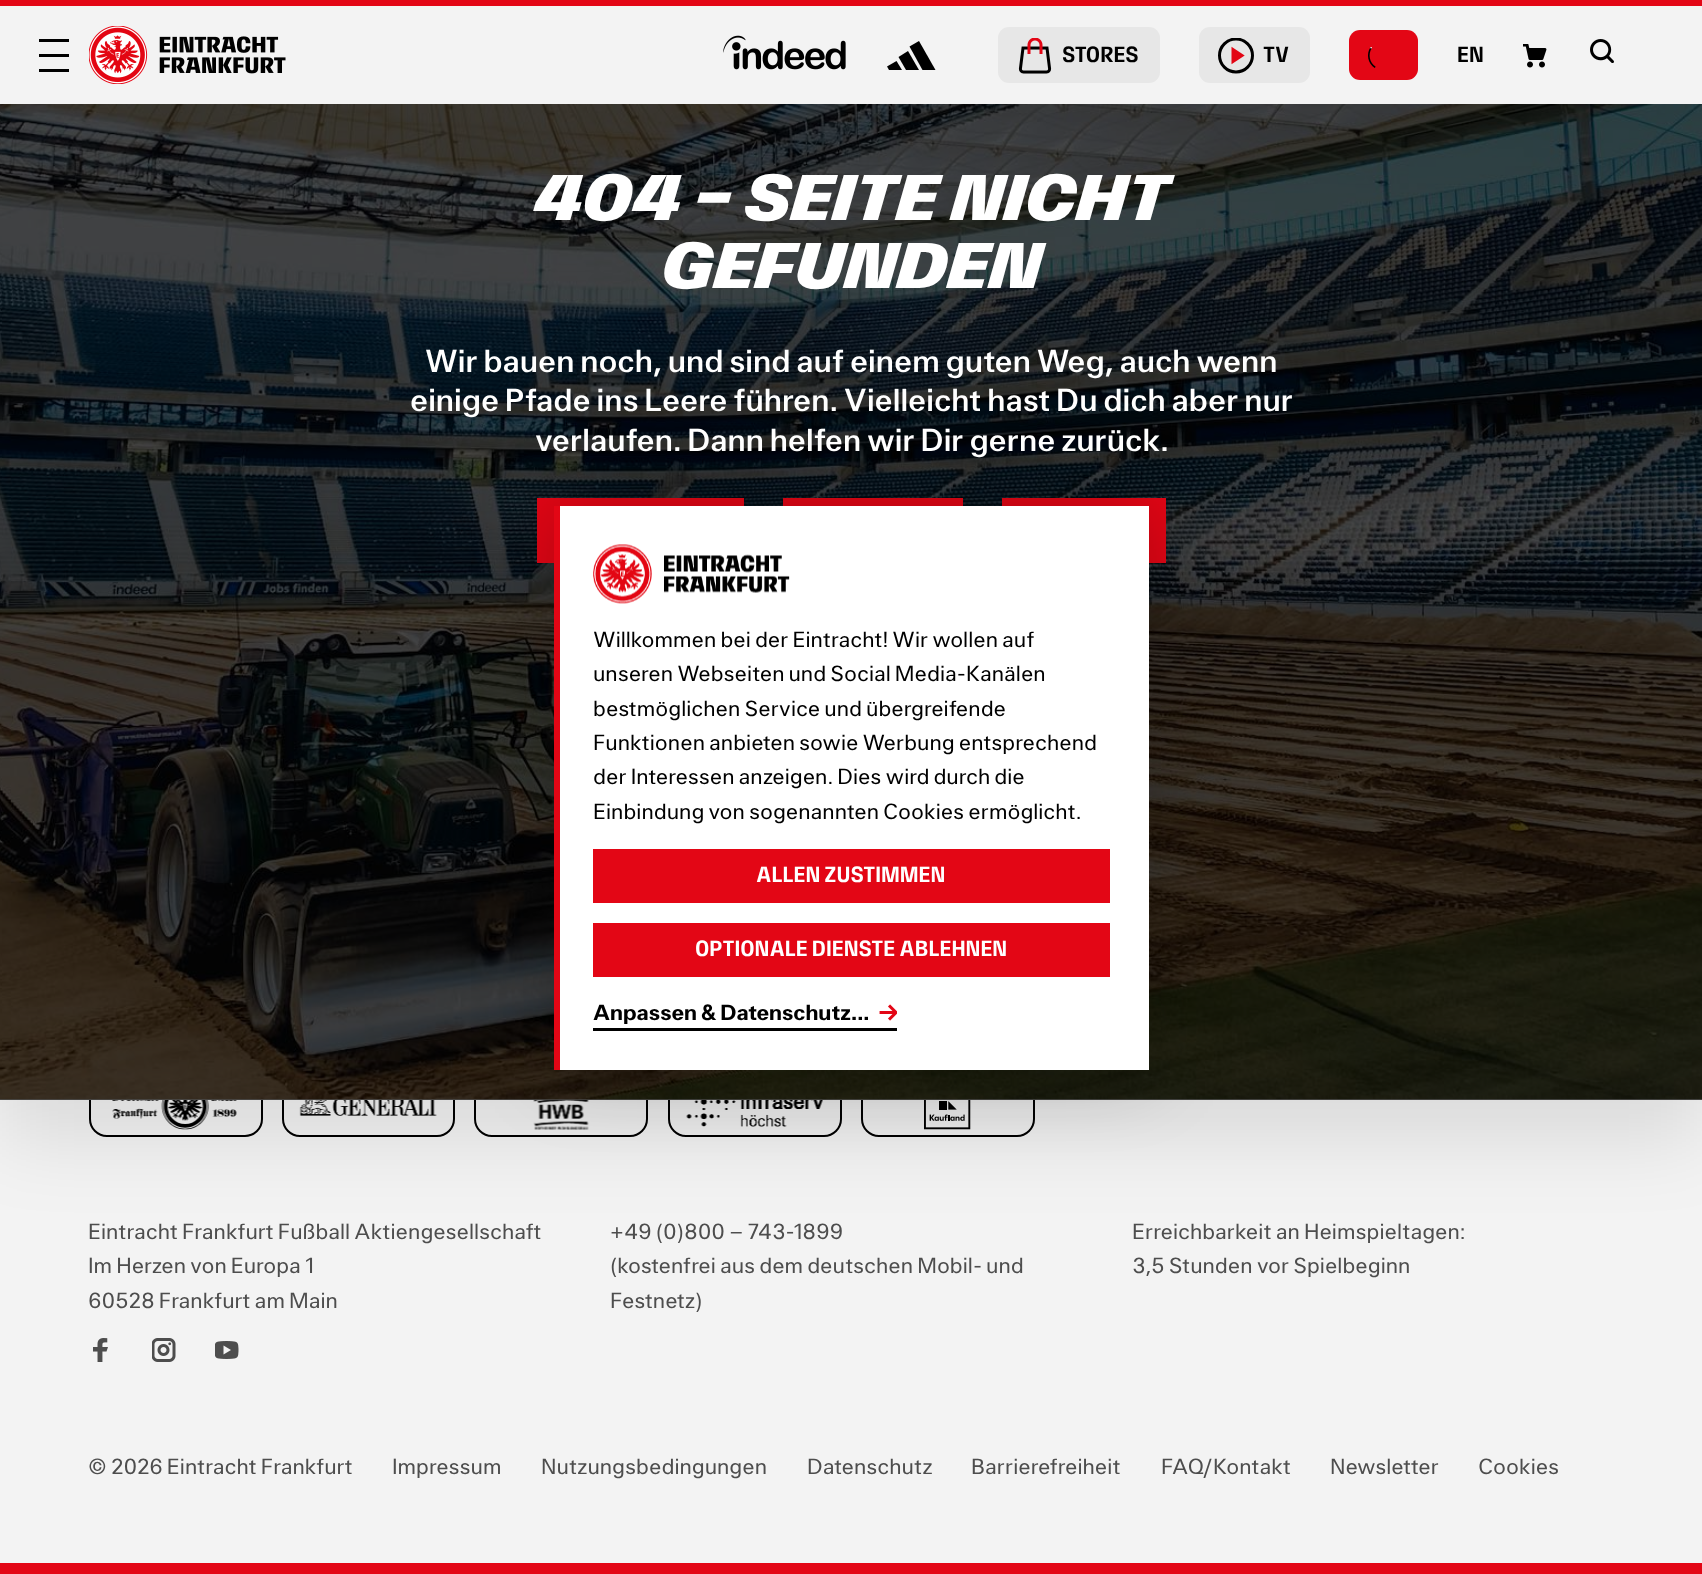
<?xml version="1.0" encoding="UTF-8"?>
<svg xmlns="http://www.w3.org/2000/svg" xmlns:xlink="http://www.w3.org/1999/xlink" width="1702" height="1574">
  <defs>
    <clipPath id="clip1"><rect x="1218" y="38" width="36" height="36" /></clipPath>
  </defs>
  <rect width="100%" height="100%" fill="#f3f3f3" />
  <rect x="90" y="1077" width="172" height="59" rx="17" fill="none" stroke="#000000" stroke-width="2" />
  <image x="112" y="1100" width="125" height="30" xlink:href="image8.png" />
  <rect x="283" y="1077" width="171" height="59" rx="17" fill="none" stroke="#000000" stroke-width="2" />
  <image x="299" y="1100" width="138" height="16" xlink:href="image9.png" />
  <rect x="475" y="1077" width="172" height="59" rx="17" fill="none" stroke="#000000" stroke-width="2" />
  <image x="533" y="1100" width="56" height="30" xlink:href="image10.png" />
  <rect x="669" y="1077" width="172" height="59" rx="17" fill="none" stroke="#000000" stroke-width="2" />
  <image x="686" y="1100" width="137" height="27" xlink:href="image11.png" />
  <rect x="862" y="1077" width="172" height="59" rx="17" fill="none" stroke="#000000" stroke-width="2" />
  <image x="924" y="1100" width="47" height="30" xlink:href="image12.png" />
  <rect y="-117" width="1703" height="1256" fill="#000000" fill-opacity="0.1" filter="blur(39px)" />
  <rect y="6" width="1702" height="98" fill="#f3f3f3" />
  <rect x="39" y="39" width="30" height="3" fill="#000000" />
  <rect x="39" y="54" width="30" height="3" fill="#000000" />
  <rect x="39" y="69" width="30" height="3" fill="#000000" />
  <rect width="1702" height="6" fill="#e30615" />
  <image x="89" y="26" width="197" height="58" xlink:href="image1.png" />
  <image x="723" y="35" width="123" height="35" xlink:href="image2.png" />
  <path d="M 902 70 h -13 l -2 -3.5 l 9.5 -5.5 z" fill="#000000" />
  <path d="M 919 70 h -13 l -7.5 -13 l 9.5 -6 z" fill="#000000" />
  <path d="M 935.5 70 h -13 l -13 -23.5 l 9.5 -5.5 z" fill="#000000" />
  <rect x="998" y="27" width="162" height="56" rx="11" fill="#e7e7e7" />
  <image x="1018" y="38" width="34" height="36" xlink:href="image3.png" />
  <rect x="1199" y="27" width="111" height="56" rx="11" fill="#e7e7e7" />
  <g clip-path="url(#clip1)">
    <circle cx="1236" cy="55.5" r="16.5" fill="none" stroke="#000000" stroke-width="3" />
  </g>
  <path d="M 1233 61.5 v -12 l 9 6 z" fill="#e30615" stroke="#e30615" stroke-width="3" stroke-linecap="square" />
  <rect x="1349" y="30" width="69" height="50" rx="11" fill="#e30615" />
  <image x="1368" y="47" width="8" height="21" xlink:href="image4.png" />
  <image x="1523" y="44" width="24" height="24" xlink:href="image5.png" />
  <image x="1590" y="39" width="24" height="24" xlink:href="image6.png" />
  <rect y="1099" width="1702" height="1" fill="#ffffff" />
  <image x="0" y="104" width="1702" height="996" xlink:href="image7.png" />
  <rect y="104" width="1702" height="996" fill="#000000" fill-opacity="0.7" />
  <rect x="537" y="498" width="207" height="65" fill="#e30615" />
  <rect x="783" y="498" width="180" height="8" fill="#e30615" />
  <rect x="1002" y="498" width="164" height="65" fill="#e30615" />
  <rect y="1563" width="1702" height="11" fill="#e30615" />
  <image x="93" y="1338" width="15" height="24" xlink:href="image13.png" />
  <image x="152" y="1338" width="24" height="24" xlink:href="image14.png" />
  <image x="215" y="1341" width="24" height="18" xlink:href="image15.png" />
  <rect x="554" y="506" width="595" height="564" fill="#000000" fill-opacity="0.25" filter="blur(39px)" />
  <rect x="560" y="506" width="589" height="564" fill="#ffffff" />
  <rect x="554" y="506" width="6" height="564" fill="#e30615" />
  <image x="593" y="544" width="197" height="60" xlink:href="image16.png" />
  <rect x="593" y="849" width="517" height="54" fill="#e30615" />
  <rect x="593" y="923" width="517" height="54" fill="#e30615" />
  <image x="879" y="1004" width="18" height="17" xlink:href="image17.png" />
  <rect x="593" y="1028" width="304" height="3" fill="#000000" />
  <text x="1062" y="62" style="font-family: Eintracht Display; font-size: 21.75px; fill: #000000">Stores</text>
  <text x="1263" y="62" style="font-family: Eintracht Display; font-size: 21.75px; fill: #000000">TV</text>
  <text x="1457" y="62" style="font-family: Eintracht Display; font-size: 21.75px; fill: #000000">EN</text>
  <text x="533" y="220" style="font-family: Eintracht Display; font-size: 63.75px; font-weight: 600; fill: #ffffff">404 – Seite nicht</text>
  <text x="661" y="288" style="font-family: Eintracht Display; font-size: 63.75px; font-weight: 600; fill: #ffffff">gefunden</text>
  <text x="425" y="372" style="font-family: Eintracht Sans; font-size: 31.4px; font-weight: 500; fill: #ffffff">Wir bauen noch, und sind auf einem guten Weg, auch wenn</text>
  <text x="410" y="411" style="font-family: Eintracht Sans; font-size: 31.4px; font-weight: 500; fill: #ffffff">einige Pfade ins Leere führen. Vielleicht hast Du dich aber nur</text>
  <text x="535" y="451" style="font-family: Eintracht Sans; font-size: 31.4px; font-weight: 500; fill: #ffffff">verlaufen. Dann helfen wir Dir gerne zurück.</text>
  <text x="88" y="1239" style="font-family: Eintracht Sans; font-size: 21.75px; fill: #4d4d4d">Eintracht Frankfurt Fußball Aktiengesellschaft</text>
  <text x="88" y="1273" style="font-family: Eintracht Sans; font-size: 21.75px; fill: #4d4d4d">Im Herzen von Europa 1</text>
  <text x="88" y="1308" style="font-family: Eintracht Sans; font-size: 21.75px; fill: #4d4d4d">60528 Frankfurt am Main</text>
  <text x="610" y="1239" style="font-family: Eintracht Sans; font-size: 21.75px; fill: #4d4d4d">+49 (0)800 – 743-1899</text>
  <text x="610" y="1273" style="font-family: Eintracht Sans; font-size: 21.75px; fill: #4d4d4d">(kostenfrei aus dem deutschen Mobil- und</text>
  <text x="610" y="1308" style="font-family: Eintracht Sans; font-size: 21.75px; fill: #4d4d4d">Festnetz)</text>
  <text x="1132" y="1239" style="font-family: Eintracht Sans; font-size: 21.75px; fill: #4d4d4d">Erreichbarkeit an Heimspieltagen:</text>
  <text x="1132" y="1273" style="font-family: Eintracht Sans; font-size: 21.75px; fill: #4d4d4d">3,5 Stunden vor Spielbeginn</text>
  <text x="88" y="1474" style="font-family: Eintracht Sans; font-size: 21.75px; fill: #4d4d4d">© 2026 Eintracht Frankfurt</text>
  <text x="392" y="1474" style="font-family: Eintracht Sans; font-size: 21.75px; fill: #4d4d4d">Impressum</text>
  <text x="541" y="1474" style="font-family: Eintracht Sans; font-size: 21.75px; fill: #4d4d4d">Nutzungsbedingungen</text>
  <text x="807" y="1474" style="font-family: Eintracht Sans; font-size: 21.75px; fill: #4d4d4d">Datenschutz</text>
  <text x="971" y="1474" style="font-family: Eintracht Sans; font-size: 21.75px; fill: #4d4d4d">Barrierefreiheit</text>
  <text x="1161" y="1474" style="font-family: Eintracht Sans; font-size: 21.75px; fill: #4d4d4d">FAQ/Kontakt</text>
  <text x="1330" y="1474" style="font-family: Eintracht Sans; font-size: 21.75px; fill: #4d4d4d">Newsletter</text>
  <text x="1478" y="1474" style="font-family: Eintracht Sans; font-size: 21.75px; fill: #4d4d4d">Cookies</text>
  <text x="593" y="647" style="font-family: Eintracht Sans; font-size: 21.75px; fill: #000000">Willkommen bei der Eintracht! Wir wollen auf</text>
  <text x="593" y="681" style="font-family: Eintracht Sans; font-size: 21.75px; fill: #000000">unseren Webseiten und Social Media-Kanälen</text>
  <text x="593" y="716" style="font-family: Eintracht Sans; font-size: 21.75px; fill: #000000">bestmöglichen Service und übergreifende</text>
  <text x="593" y="750" style="font-family: Eintracht Sans; font-size: 21.75px; fill: #000000">Funktionen anbieten sowie Werbung entsprechend</text>
  <text x="593" y="784" style="font-family: Eintracht Sans; font-size: 21.75px; fill: #000000">der Interessen anzeigen. Dies wird durch die</text>
  <text x="593" y="819" style="font-family: Eintracht Sans; font-size: 21.75px; fill: #000000">Einbindung von sogenannten Cookies ermöglicht.</text>
  <text x="756" y="882" style="font-family: Eintracht Display; font-size: 21.75px; fill: #ffffff">Allen zustimmen</text>
  <text x="695" y="956" style="font-family: Eintracht Display; font-size: 21.75px; fill: #ffffff">Optionale Dienste ablehnen</text>
  <text x="593" y="1020" style="font-family: Eintracht Sans; font-size: 21.75px; font-weight: bold; fill: #000000">Anpassen &amp; Datenschutz...</text>
</svg>
